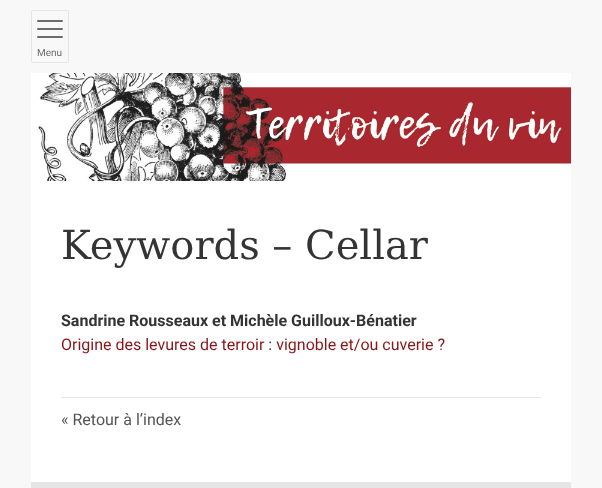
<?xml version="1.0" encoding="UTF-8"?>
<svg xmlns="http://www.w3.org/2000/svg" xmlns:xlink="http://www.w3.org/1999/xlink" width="602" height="488">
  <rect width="100%" height="100%" fill="#f8f8f8" />
  <rect x="31.5" y="10.5" width="37" height="52" rx="1.5" fill="none" stroke="#e5e5e5" />
  <path d="M 38 29 h 24 m -24 -8 h 24 m -24 16 h 24" fill="none" stroke="#6c6c6c" stroke-width="2" stroke-linecap="round" stroke-linejoin="round" />
  <image x="31" y="73" width="540" height="108" xlink:href="image1.png" />
  <rect x="31" y="181" width="540" height="301" fill="#ffffff" />
  <rect x="61" y="397" width="480" height="1" fill="#e5e5e5" />
  <rect x="31" y="482" width="540" height="6" fill="#e5e5e5" />
  <text x="37" y="56" style="font-family: Roboto; font-size: 10px; fill: #6c6c6c">Menu</text>
  <text x="61" y="259" style="font-family: DejaVu Serif; font-size: 40px; fill: #343434">Keywords – Cellar</text>
  <text x="61" y="326" style="font-family: Roboto; font-size: 16px; font-weight: bold; fill: #343434">Sandrine Rousseaux et Michèle Guilloux-Bénatier</text>
  <text x="61" y="350" style="font-family: Roboto; font-size: 16px; fill: #881619">Origine des levures de terroir : vignoble et/ou cuverie ?</text>
  <text x="61" y="425" style="font-family: Roboto; font-size: 16px; fill: #555555">« Retour à l’index</text>
</svg>
